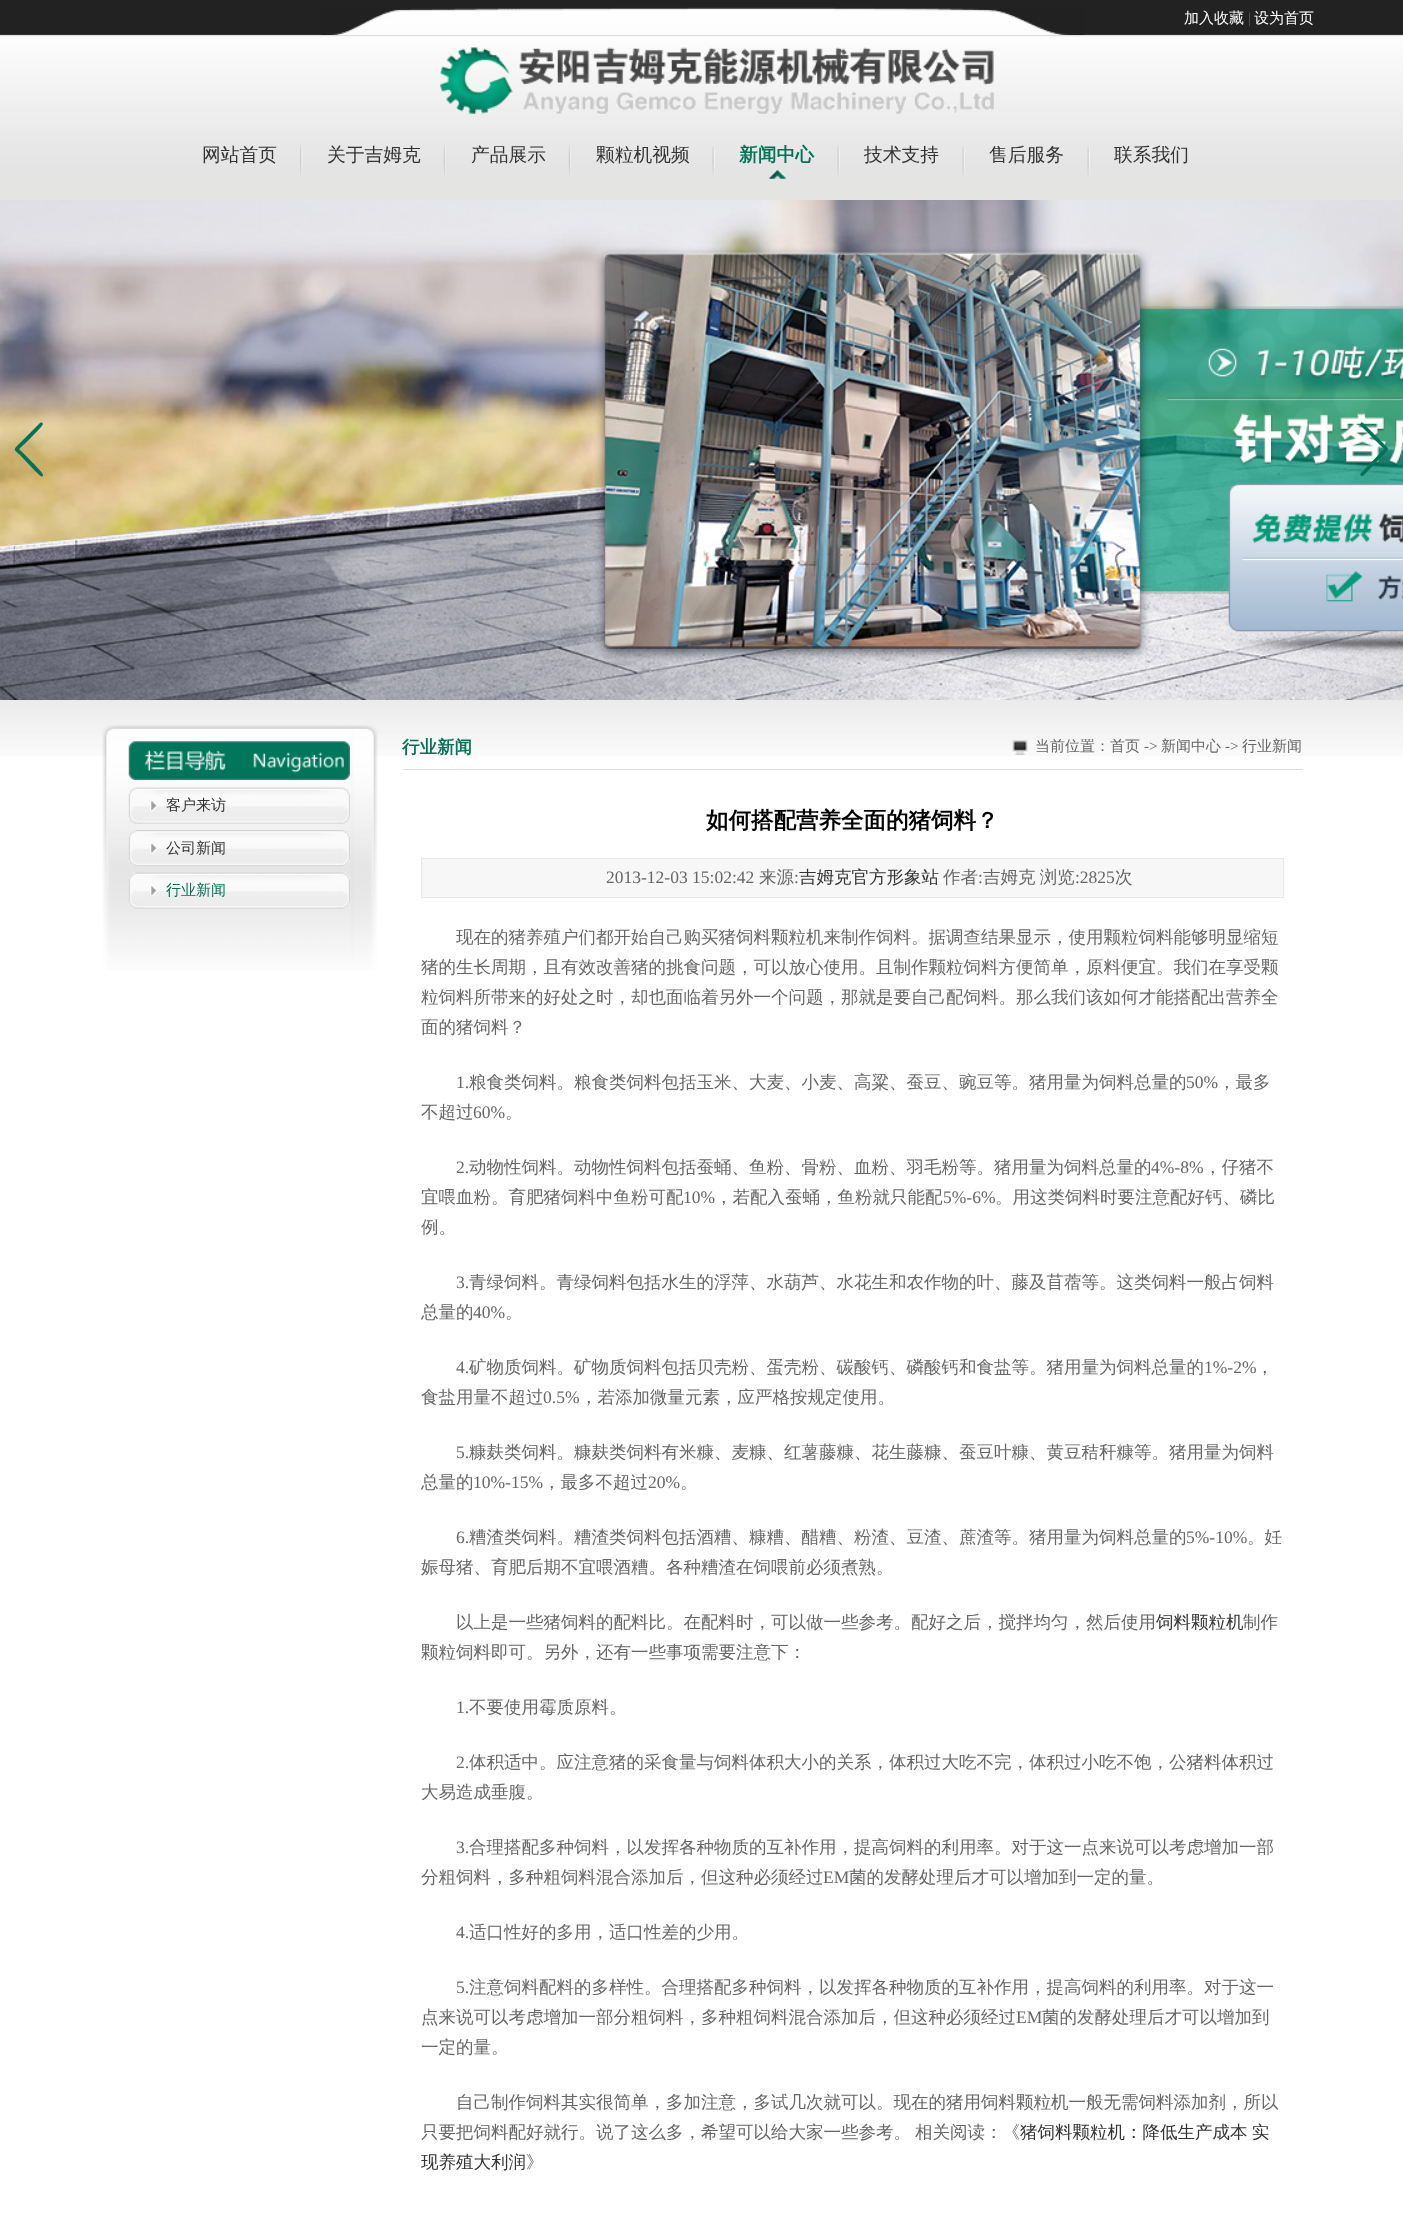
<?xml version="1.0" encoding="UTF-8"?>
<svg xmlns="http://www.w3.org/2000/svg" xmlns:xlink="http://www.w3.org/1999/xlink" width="1403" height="2217">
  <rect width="100%" height="100%" fill="#ffffff" />
  <image x="0" y="0" width="1403" height="756" xlink:href="image1.png" />
  <image x="321" y="7" width="763" height="28" xlink:href="image2.png" />
  <image x="440" y="47" width="554" height="68" xlink:href="image3.png" />
  <image x="300" y="144" width="3" height="33" xlink:href="image4.png" />
  <image x="443" y="144" width="3" height="33" xlink:href="image5.png" />
  <image x="568" y="144" width="3" height="33" xlink:href="image5.png" />
  <image x="712" y="146" width="3" height="30" xlink:href="image6.png" />
  <image x="837" y="146" width="3" height="30" xlink:href="image6.png" />
  <image x="767" y="170" width="21" height="9" xlink:href="image7.png" />
  <image x="962" y="146" width="3" height="30" xlink:href="image6.png" />
  <image x="1087" y="146" width="3" height="30" xlink:href="image6.png" />
  <image x="0" y="200" width="1403" height="500" xlink:href="image8.png" />
  <path d="M 40 423 c 1 -1 3 0 3 1 c 0 2 -21 23 -24 25 c 3 3 25 24 24 26 c -1 4 -4 -1 -7 -3 l -16 -17 c -7 -6 -7 -5 0 -12 z" fill="#007457" />
  <path d="M 1361 476 c -1 -1 -1 -2 0 -3 l 23 -24 l -23 -23 c -1 -1 -1 -2 0 -3 c 0 -1 1 -1 2 0 l 24 24 l 1 2 l -1 2 l -24 25 c -1 0 -2 0 -2 0 z" fill="#007457" />
  <image x="102" y="725" width="276" height="246" xlink:href="image9.png" />
  <image x="128" y="741" width="222" height="39" xlink:href="image10.png" />
  <image x="128" y="787" width="222" height="37" xlink:href="image11.png" />
  <image x="128" y="830" width="222" height="37" xlink:href="image12.png" />
  <image x="128" y="872" width="222" height="37" xlink:href="image13.png" />
  <rect x="403" y="769" width="900" height="1" fill="#dfdfdf" />
  <image x="1012" y="740" width="16" height="15" xlink:href="image14.png" />
  <rect x="421.5" y="858.5" width="862" height="39" fill="#f7f7f7" stroke="#e8e8e8" />
  <text x="1184" y="23" style="font-family: WenQuanYi Zen Hei; font-size: 15px; font-weight: 500; fill: #ffffff">加入收藏</text>
  <text x="1248" y="23" style="font-family: Liberation Serif; font-size: 15px; fill: #5e5d5d">|</text>
  <text x="1254" y="23" style="font-family: WenQuanYi Zen Hei; font-size: 15px; font-weight: 500; fill: #ffffff">设为首页</text>
  <text x="202" y="161" style="font-family: WenQuanYi Zen Hei; font-size: 18.75px; font-weight: 500; fill: #333333">网站首页</text>
  <text x="327" y="161" style="font-family: WenQuanYi Zen Hei; font-size: 18.75px; font-weight: 500; fill: #333333">关于吉姆克</text>
  <text x="471" y="161" style="font-family: WenQuanYi Zen Hei; font-size: 18.75px; font-weight: 500; fill: #333333">产品展示</text>
  <text x="596" y="161" style="font-family: WenQuanYi Zen Hei; font-size: 18.75px; font-weight: 500; fill: #333333">颗粒机视频</text>
  <text x="739" y="161" style="font-family: WenQuanYi Zen Hei; font-size: 18.75px; font-weight: bold; fill: #007457">新闻中心</text>
  <text x="864" y="161" style="font-family: WenQuanYi Zen Hei; font-size: 18.75px; font-weight: 500; fill: #333333">技术支持</text>
  <text x="989" y="161" style="font-family: WenQuanYi Zen Hei; font-size: 18.75px; font-weight: 500; fill: #333333">售后服务</text>
  <text x="1114" y="161" style="font-family: WenQuanYi Zen Hei; font-size: 18.75px; font-weight: 500; fill: #333333">联系我们</text>
  <text x="166" y="810" style="font-family: WenQuanYi Zen Hei; font-size: 15px; font-weight: 500; fill: #333333">客户来访</text>
  <text x="166" y="853" style="font-family: WenQuanYi Zen Hei; font-size: 15px; font-weight: 500; fill: #333333">公司新闻</text>
  <text x="166" y="895" style="font-family: WenQuanYi Zen Hei; font-size: 15px; font-weight: 500; fill: #007457">行业新闻</text>
  <text x="402" y="753" style="font-family: WenQuanYi Zen Hei; font-size: 17.5px; font-weight: bold; fill: #007457">行业新闻</text>
  <text x="1035" y="751" style="font-family: WenQuanYi Zen Hei; font-size: 15px; font-weight: 500; fill: #666666">当前位置：首页</text>
  <text x="1144" y="751" style="font-family: Liberation Serif; font-size: 15px; fill: #666666">-&gt;</text>
  <text x="1161" y="751" style="font-family: WenQuanYi Zen Hei; font-size: 15px; font-weight: 500; fill: #666666">新闻中心</text>
  <text x="1225" y="751" style="font-family: Liberation Serif; font-size: 15px; fill: #666666">-&gt;</text>
  <text x="1242" y="751" style="font-family: WenQuanYi Zen Hei; font-size: 15px; font-weight: 500; fill: #666666">行业新闻</text>
  <text x="706" y="828" style="font-family: WenQuanYi Zen Hei; font-size: 22.5px; font-weight: bold; fill: #000000">如何搭配营养全面的猪饲料？</text>
  <text x="606" y="883" style="font-family: Liberation Serif; font-size: 17.5px; fill: #666666">2013-12-03 15:02:42</text>
  <text x="759" y="883" style="font-family: WenQuanYi Zen Hei; font-size: 17.5px; font-weight: 500; fill: #666666">来源</text>
  <text x="794" y="883" style="font-family: Liberation Serif; font-size: 17.5px; fill: #666666">:</text>
  <text x="799" y="883" style="font-family: WenQuanYi Zen Hei; font-size: 17.5px; font-weight: 500; fill: #333333">吉姆克官方形象站</text>
  <text x="943" y="883" style="font-family: WenQuanYi Zen Hei; font-size: 17.5px; font-weight: 500; fill: #666666">作者</text>
  <text x="978" y="883" style="font-family: Liberation Serif; font-size: 17.5px; fill: #666666">:</text>
  <text x="983" y="883" word-spacing="-1" style="font-family: WenQuanYi Zen Hei; font-size: 17.5px; font-weight: 500; fill: #666666">吉姆克 浏览</text>
  <text x="1075" y="883" style="font-family: Liberation Serif; font-size: 17.5px; fill: #666666">:2825</text>
  <text x="1115" y="883" style="font-family: WenQuanYi Zen Hei; font-size: 17.5px; font-weight: 500; fill: #666666">次</text>
  <text x="456" y="943" style="font-family: WenQuanYi Zen Hei; font-size: 17.5px; font-weight: 500; fill: #666666">现在的猪养殖户们都开始自己购买猪饲料颗粒机来制作饲料。据调查结果显示，使用颗粒饲料能够明显缩短</text>
  <text x="421" y="973" style="font-family: WenQuanYi Zen Hei; font-size: 17.5px; font-weight: 500; fill: #666666">猪的生长周期，且有效改善猪的挑食问题，可以放心使用。且制作颗粒饲料方便简单，原料便宜。我们在享受颗</text>
  <text x="421" y="1003" style="font-family: WenQuanYi Zen Hei; font-size: 17.5px; font-weight: 500; fill: #666666">粒饲料所带来的好处之时，却也面临着另外一个问题，那就是要自己配饲料。那么我们该如何才能搭配出营养全</text>
  <text x="421" y="1033" style="font-family: WenQuanYi Zen Hei; font-size: 17.5px; font-weight: 500; fill: #666666">面的猪饲料？</text>
  <text x="456" y="1088" style="font-family: Liberation Serif; font-size: 17.5px; fill: #666666">1.</text>
  <text x="469" y="1088" style="font-family: WenQuanYi Zen Hei; font-size: 17.5px; font-weight: 500; fill: #666666">粮食类饲料。粮食类饲料包括玉米、大麦、小麦、高粱、蚕豆、豌豆等。猪用量为饲料总量的</text>
  <text x="1186" y="1088" style="font-family: Liberation Serif; font-size: 17.5px; fill: #666666">50%</text>
  <text x="1218" y="1088" style="font-family: WenQuanYi Zen Hei; font-size: 17.5px; font-weight: 500; fill: #666666">，最多</text>
  <text x="421" y="1118" style="font-family: WenQuanYi Zen Hei; font-size: 17.5px; font-weight: 500; fill: #666666">不超过</text>
  <text x="473" y="1118" style="font-family: Liberation Serif; font-size: 17.5px; fill: #666666">60%</text>
  <text x="505" y="1118" style="font-family: WenQuanYi Zen Hei; font-size: 17.5px; font-weight: 500; fill: #666666">。</text>
  <text x="456" y="1173" style="font-family: Liberation Serif; font-size: 17.5px; fill: #666666">2.</text>
  <text x="469" y="1173" style="font-family: WenQuanYi Zen Hei; font-size: 17.5px; font-weight: 500; fill: #666666">动物性饲料。动物性饲料包括蚕蛹、鱼粉、骨粉、血粉、羽毛粉等。猪用量为饲料总量的</text>
  <text x="1151" y="1173" style="font-family: Liberation Serif; font-size: 17.5px; fill: #666666">4%-8%</text>
  <text x="1204" y="1173" style="font-family: WenQuanYi Zen Hei; font-size: 17.5px; font-weight: 500; fill: #666666">，仔猪不</text>
  <text x="421" y="1203" style="font-family: WenQuanYi Zen Hei; font-size: 17.5px; font-weight: 500; fill: #666666">宜喂血粉。育肥猪饲料中鱼粉可配</text>
  <text x="683" y="1203" style="font-family: Liberation Serif; font-size: 17.5px; fill: #666666">10%</text>
  <text x="715" y="1203" style="font-family: WenQuanYi Zen Hei; font-size: 17.5px; font-weight: 500; fill: #666666">，若配入蚕蛹，鱼粉就只能配</text>
  <text x="943" y="1203" style="font-family: Liberation Serif; font-size: 17.5px; fill: #666666">5%-6%</text>
  <text x="995" y="1203" style="font-family: WenQuanYi Zen Hei; font-size: 17.5px; font-weight: 500; fill: #666666">。用这类饲料时要注意配好钙、磷比</text>
  <text x="421" y="1233" style="font-family: WenQuanYi Zen Hei; font-size: 17.5px; font-weight: 500; fill: #666666">例。</text>
  <text x="456" y="1288" style="font-family: Liberation Serif; font-size: 17.5px; fill: #666666">3.</text>
  <text x="469" y="1288" style="font-family: WenQuanYi Zen Hei; font-size: 17.5px; font-weight: 500; fill: #666666">青绿饲料。青绿饲料包括水生的浮萍、水葫芦、水花生和农作物的叶、藤及苜蓿等。这类饲料一般占饲料</text>
  <text x="421" y="1318" style="font-family: WenQuanYi Zen Hei; font-size: 17.5px; font-weight: 500; fill: #666666">总量的</text>
  <text x="473" y="1318" style="font-family: Liberation Serif; font-size: 17.5px; fill: #666666">40%</text>
  <text x="505" y="1318" style="font-family: WenQuanYi Zen Hei; font-size: 17.5px; font-weight: 500; fill: #666666">。</text>
  <text x="456" y="1373" style="font-family: Liberation Serif; font-size: 17.5px; fill: #666666">4.</text>
  <text x="469" y="1373" style="font-family: WenQuanYi Zen Hei; font-size: 17.5px; font-weight: 500; fill: #666666">矿物质饲料。矿物质饲料包括贝壳粉、蛋壳粉、碳酸钙、磷酸钙和食盐等。猪用量为饲料总量的</text>
  <text x="1204" y="1373" style="font-family: Liberation Serif; font-size: 17.5px; fill: #666666">1%-2%</text>
  <text x="1256" y="1373" style="font-family: WenQuanYi Zen Hei; font-size: 17.5px; font-weight: 500; fill: #666666">，</text>
  <text x="421" y="1403" style="font-family: WenQuanYi Zen Hei; font-size: 17.5px; font-weight: 500; fill: #666666">食盐用量不超过</text>
  <text x="543" y="1403" style="font-family: Liberation Serif; font-size: 17.5px; fill: #666666">0.5%</text>
  <text x="580" y="1403" style="font-family: WenQuanYi Zen Hei; font-size: 17.5px; font-weight: 500; fill: #666666">，若添加微量元素，应严格按规定使用。</text>
  <text x="456" y="1458" style="font-family: Liberation Serif; font-size: 17.5px; fill: #666666">5.</text>
  <text x="469" y="1458" style="font-family: WenQuanYi Zen Hei; font-size: 17.5px; font-weight: 500; fill: #666666">糠麸类饲料。糠麸类饲料有米糠、麦糠、红薯藤糠、花生藤糠、蚕豆叶糠、黄豆秸秆糠等。猪用量为饲料</text>
  <text x="421" y="1488" style="font-family: WenQuanYi Zen Hei; font-size: 17.5px; font-weight: 500; fill: #666666">总量的</text>
  <text x="473" y="1488" style="font-family: Liberation Serif; font-size: 17.5px; fill: #666666">10%-15%</text>
  <text x="543" y="1488" style="font-family: WenQuanYi Zen Hei; font-size: 17.5px; font-weight: 500; fill: #666666">，最多不超过</text>
  <text x="648" y="1488" style="font-family: Liberation Serif; font-size: 17.5px; fill: #666666">20%</text>
  <text x="680" y="1488" style="font-family: WenQuanYi Zen Hei; font-size: 17.5px; font-weight: 500; fill: #666666">。</text>
  <text x="456" y="1543" style="font-family: Liberation Serif; font-size: 17.5px; fill: #666666">6.</text>
  <text x="469" y="1543" style="font-family: WenQuanYi Zen Hei; font-size: 17.5px; font-weight: 500; fill: #666666">糟渣类饲料。糟渣类饲料包括酒糟、糠糟、醋糟、粉渣、豆渣、蔗渣等。猪用量为饲料总量的</text>
  <text x="1186" y="1543" style="font-family: Liberation Serif; font-size: 17.5px; fill: #666666">5%-10%</text>
  <text x="1247" y="1543" style="font-family: WenQuanYi Zen Hei; font-size: 17.5px; font-weight: 500; fill: #666666">。妊</text>
  <text x="421" y="1573" style="font-family: WenQuanYi Zen Hei; font-size: 17.5px; font-weight: 500; fill: #666666">娠母猪、育肥后期不宜喂酒糟。各种糟渣在饲喂前必须煮熟。</text>
  <text x="456" y="1628" style="font-family: WenQuanYi Zen Hei; font-size: 17.5px; font-weight: 500; fill: #666666">以上是一些猪饲料的配料比。在配料时，可以做一些参考。配好之后，搅拌均匀，然后使用</text>
  <text x="1156" y="1628" style="font-family: WenQuanYi Zen Hei; font-size: 17.5px; font-weight: 500; fill: #333333">饲料颗粒机</text>
  <text x="1243" y="1628" style="font-family: WenQuanYi Zen Hei; font-size: 17.5px; font-weight: 500; fill: #666666">制作</text>
  <text x="421" y="1658" style="font-family: WenQuanYi Zen Hei; font-size: 17.5px; font-weight: 500; fill: #666666">颗粒饲料即可。另外，还有一些事项需要注意下：</text>
  <text x="456" y="1713" style="font-family: Liberation Serif; font-size: 17.5px; fill: #666666">1.</text>
  <text x="469" y="1713" style="font-family: WenQuanYi Zen Hei; font-size: 17.5px; font-weight: 500; fill: #666666">不要使用霉质原料。</text>
  <text x="456" y="1768" style="font-family: Liberation Serif; font-size: 17.5px; fill: #666666">2.</text>
  <text x="469" y="1768" style="font-family: WenQuanYi Zen Hei; font-size: 17.5px; font-weight: 500; fill: #666666">体积适中。应注意猪的采食量与饲料体积大小的关系，体积过大吃不完，体积过小吃不饱，公猪料体积过</text>
  <text x="421" y="1798" style="font-family: WenQuanYi Zen Hei; font-size: 17.5px; font-weight: 500; fill: #666666">大易造成垂腹。</text>
  <text x="456" y="1853" style="font-family: Liberation Serif; font-size: 17.5px; fill: #666666">3.</text>
  <text x="469" y="1853" style="font-family: WenQuanYi Zen Hei; font-size: 17.5px; font-weight: 500; fill: #666666">合理搭配多种饲料，以发挥各种物质的互补作用，提高饲料的利用率。对于这一点来说可以考虑增加一部</text>
  <text x="421" y="1883" style="font-family: WenQuanYi Zen Hei; font-size: 17.5px; font-weight: 500; fill: #666666">分粗饲料，多种粗饲料混合添加后，但这种必须经过</text>
  <text x="823" y="1883" style="font-family: Liberation Serif; font-size: 17.5px; fill: #666666">EM</text>
  <text x="849" y="1883" style="font-family: WenQuanYi Zen Hei; font-size: 17.5px; font-weight: 500; fill: #666666">菌的发酵处理后才可以增加到一定的量。</text>
  <text x="456" y="1938" style="font-family: Liberation Serif; font-size: 17.5px; fill: #666666">4.</text>
  <text x="469" y="1938" style="font-family: WenQuanYi Zen Hei; font-size: 17.5px; font-weight: 500; fill: #666666">适口性好的多用，适口性差的少用。</text>
  <text x="456" y="1993" style="font-family: Liberation Serif; font-size: 17.5px; fill: #666666">5.</text>
  <text x="469" y="1993" style="font-family: WenQuanYi Zen Hei; font-size: 17.5px; font-weight: 500; fill: #666666">注意饲料配料的多样性。合理搭配多种饲料，以发挥各种物质的互补作用，提高饲料的利用率。对于这一</text>
  <text x="421" y="2023" style="font-family: WenQuanYi Zen Hei; font-size: 17.5px; font-weight: 500; fill: #666666">点来说可以考虑增加一部分粗饲料，多种粗饲料混合添加后，但这种必须经过</text>
  <text x="1016" y="2023" style="font-family: Liberation Serif; font-size: 17.5px; fill: #666666">EM</text>
  <text x="1042" y="2023" style="font-family: WenQuanYi Zen Hei; font-size: 17.5px; font-weight: 500; fill: #666666">菌的发酵处理后才可以增加到</text>
  <text x="421" y="2053" style="font-family: WenQuanYi Zen Hei; font-size: 17.5px; font-weight: 500; fill: #666666">一定的量。</text>
  <text x="456" y="2108" style="font-family: WenQuanYi Zen Hei; font-size: 17.5px; font-weight: 500; fill: #666666">自己制作饲料其实很简单，多加注意，多试几次就可以。现在的猪用饲料颗粒机一般无需饲料添加剂，所以</text>
  <text x="421" y="2138" style="font-family: WenQuanYi Zen Hei; font-size: 17.5px; font-weight: 500; fill: #666666">只要把饲料配好就行。说了这么多，希望可以给大家一些参考。</text>
  <text x="915" y="2138" style="font-family: WenQuanYi Zen Hei; font-size: 17.5px; font-weight: 500; fill: #666666">相关阅读：《</text>
  <text x="1020" y="2138" word-spacing="-1" style="font-family: WenQuanYi Zen Hei; font-size: 17.5px; font-weight: 500; fill: #333333">猪饲料颗粒机：降低生产成本 实</text>
  <text x="421" y="2168" style="font-family: WenQuanYi Zen Hei; font-size: 17.5px; font-weight: 500; fill: #333333">现养殖大利润</text>
  <text x="526" y="2168" style="font-family: WenQuanYi Zen Hei; font-size: 17.5px; font-weight: 500; fill: #666666">》</text>
</svg>
